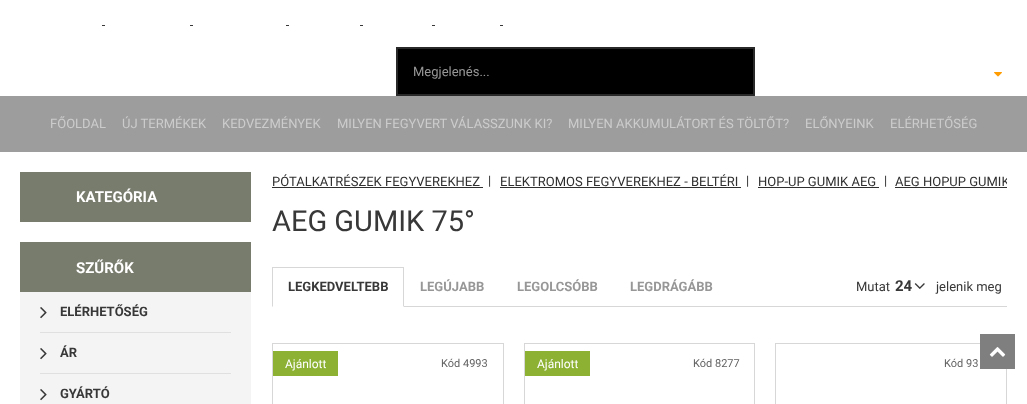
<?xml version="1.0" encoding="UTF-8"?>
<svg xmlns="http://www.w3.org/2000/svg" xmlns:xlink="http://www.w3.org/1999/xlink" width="1027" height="404">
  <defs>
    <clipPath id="clip1"><rect x="272" y="172" width="735" height="20" /></clipPath>
  </defs>
  <rect width="100%" height="100%" fill="#ffffff" />
  <rect x="102" y="25" width="3" height="1" fill="#383838" />
  <rect x="190" y="25" width="3" height="1" fill="#383838" />
  <rect x="286" y="25" width="3" height="1" fill="#383838" />
  <rect x="360" y="25" width="3" height="1" fill="#383838" />
  <rect x="432" y="25" width="3" height="1" fill="#383838" />
  <rect x="500" y="25" width="3" height="1" fill="#383838" />
  <rect x="397" y="48" width="357" height="47" fill="none" stroke="#292929" stroke-width="2" />
  <rect x="398" y="49" width="355" height="45" fill="#000000" />
  <image x="994" y="72" width="8" height="5" xlink:href="image1.png" />
  <rect y="96" width="1027" height="56" fill="#9d9d9d" />
  <rect x="20" y="172" width="231" height="50" fill="#787c6c" />
  <rect x="20" y="292" width="231" height="112" fill="#f4f4f4" />
  <rect x="20" y="242" width="231" height="50" fill="#787c6c" />
  <image x="40" y="307" width="7" height="12" xlink:href="image2.png" />
  <rect x="40" y="332" width="191" height="1" fill="#e0e0e0" />
  <image x="40" y="348" width="7" height="12" xlink:href="image2.png" />
  <rect x="40" y="373" width="191" height="1" fill="#e0e0e0" />
  <image x="40" y="389" width="7" height="12" xlink:href="image2.png" />
  <rect x="272" y="187" width="211" height="1" fill="#2f2f2f" />
  <rect x="500" y="187" width="241" height="1" fill="#2f2f2f" />
  <rect x="758" y="187" width="121" height="1" fill="#2f2f2f" />
  <rect x="895" y="187" width="112" height="1" fill="#2f2f2f" />
  <rect x="404" y="306" width="603" height="1" fill="#d7d7d7" />
  <rect x="272" y="267" width="132" height="1" fill="#d7d7d7" />
  <path d="M 404 267 v 40 l -1 -1 v -38 z" fill="#d7d7d7" />
  <path d="M 272 307 v -40 l 1 1 v 38 z" fill="#d7d7d7" />
  <image x="914" y="283" width="11" height="6" xlink:href="image3.png" />
  <rect x="272.5" y="343.5" width="231" height="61" fill="none" stroke="#d7d7d7" />
  <rect x="273" y="351" width="65" height="25" fill="#8cb133" />
  <rect x="524.5" y="343.5" width="230" height="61" fill="none" stroke="#d7d7d7" />
  <rect x="525" y="351" width="65" height="25" fill="#8cb133" />
  <rect x="775.5" y="343.5" width="231" height="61" fill="none" stroke="#d7d7d7" />
  <rect x="980" y="334" width="35" height="35" fill="#7f7f7f" />
  <image x="989" y="347" width="17" height="10" xlink:href="image4.png" />
  <text x="413" y="76" style="font-family: Roboto; font-size: 13px; fill: #979797">Megjelenés...</text>
  <text x="50" y="128" style="font-family: Roboto; font-size: 13px; fill: #cccccc">FŐOLDAL</text>
  <text x="122" y="128" style="font-family: Roboto; font-size: 13px; fill: #cccccc">ÚJ TERMÉKEK</text>
  <text x="222" y="128" style="font-family: Roboto; font-size: 13px; fill: #cccccc">KEDVEZMÉNYEK</text>
  <text x="337" y="128" style="font-family: Roboto; font-size: 13px; fill: #cccccc">MILYEN FEGYVERT VÁLASSZUNK KI?</text>
  <text x="568" y="128" style="font-family: Roboto; font-size: 13px; fill: #cccccc">MILYEN AKKUMULÁTORT ÉS TÖLTŐT?</text>
  <text x="805" y="128" style="font-family: Roboto; font-size: 13px; fill: #cccccc">ELŐNYEINK</text>
  <text x="890" y="128" style="font-family: Roboto; font-size: 13px; fill: #cccccc">ELÉRHETŐSÉG</text>
  <text x="76" y="202" style="font-family: Roboto; font-size: 15px; font-weight: bold; fill: #ffffff">KATEGÓRIA</text>
  <text x="76" y="273" style="font-family: Roboto; font-size: 15px; font-weight: bold; fill: #ffffff">SZŰRŐK</text>
  <text x="60" y="316" style="font-family: Roboto; font-size: 13px; font-weight: bold; fill: #383838">ELÉRHETŐSÉG</text>
  <text x="60" y="357" style="font-family: Roboto; font-size: 13px; font-weight: bold; fill: #383838">ÁR</text>
  <text x="60" y="398" style="font-family: Roboto; font-size: 13px; font-weight: bold; fill: #383838">GYÁRTÓ</text>
  <text x="272" y="186" style="font-family: Roboto; font-size: 13px; fill: #2f2f2f">PÓTALKATRÉSZEK FEGYVEREKHEZ</text>
  <text x="488" y="185" style="font-family: Roboto; font-size: 13px; fill: #2f2f2f">|</text>
  <text x="500" y="186" style="font-family: Roboto; font-size: 13px; fill: #2f2f2f">ELEKTROMOS FEGYVEREKHEZ - BELTÉRI</text>
  <text x="746" y="185" style="font-family: Roboto; font-size: 13px; fill: #2f2f2f">|</text>
  <text x="758" y="186" style="font-family: Roboto; font-size: 13px; fill: #2f2f2f">HOP-UP GUMIK AEG</text>
  <text x="884" y="185" style="font-family: Roboto; font-size: 13px; fill: #2f2f2f">|</text>
  <g clip-path="url(#clip1)">
    <text x="895" y="186" style="font-family: Roboto; font-size: 13px; fill: #2f2f2f">AEG HOPUP GUMIK</text>
  </g>
  <text x="272" y="231" style="font-family: Roboto; font-size: 29px; fill: #383838">AEG GUMIK 75°</text>
  <text x="288" y="291" style="font-family: Roboto; font-size: 13px; font-weight: bold; fill: #383838">LEGKEDVELTEBB</text>
  <text x="420" y="291" style="font-family: Roboto; font-size: 13px; font-weight: bold; fill: #979797">LEGÚJABB</text>
  <text x="517" y="291" style="font-family: Roboto; font-size: 13px; font-weight: bold; fill: #979797">LEGOLCSÓBB</text>
  <text x="630" y="291" style="font-family: Roboto; font-size: 13px; font-weight: bold; fill: #979797">LEGDRÁGÁBB</text>
  <text x="856" y="291" style="font-family: Roboto; font-size: 13px; fill: #383838">Mutat</text>
  <text x="895" y="291" style="font-family: Roboto; font-size: 15px; font-weight: bold; fill: #383838">24</text>
  <text x="936" y="291" style="font-family: Roboto; font-size: 13px; fill: #383838">jelenik meg</text>
  <text x="285" y="368" style="font-family: Roboto; font-size: 12px; fill: #ffffff">Ajánlott</text>
  <text x="441" y="367" style="font-family: Roboto; font-size: 11px; fill: #626262">Kód 4993</text>
  <text x="537" y="368" style="font-family: Roboto; font-size: 12px; fill: #ffffff">Ajánlott</text>
  <text x="693" y="367" style="font-family: Roboto; font-size: 11px; fill: #626262">Kód 8277</text>
  <text x="944" y="367" style="font-family: Roboto; font-size: 11px; fill: #626262">Kód 93</text>
</svg>
